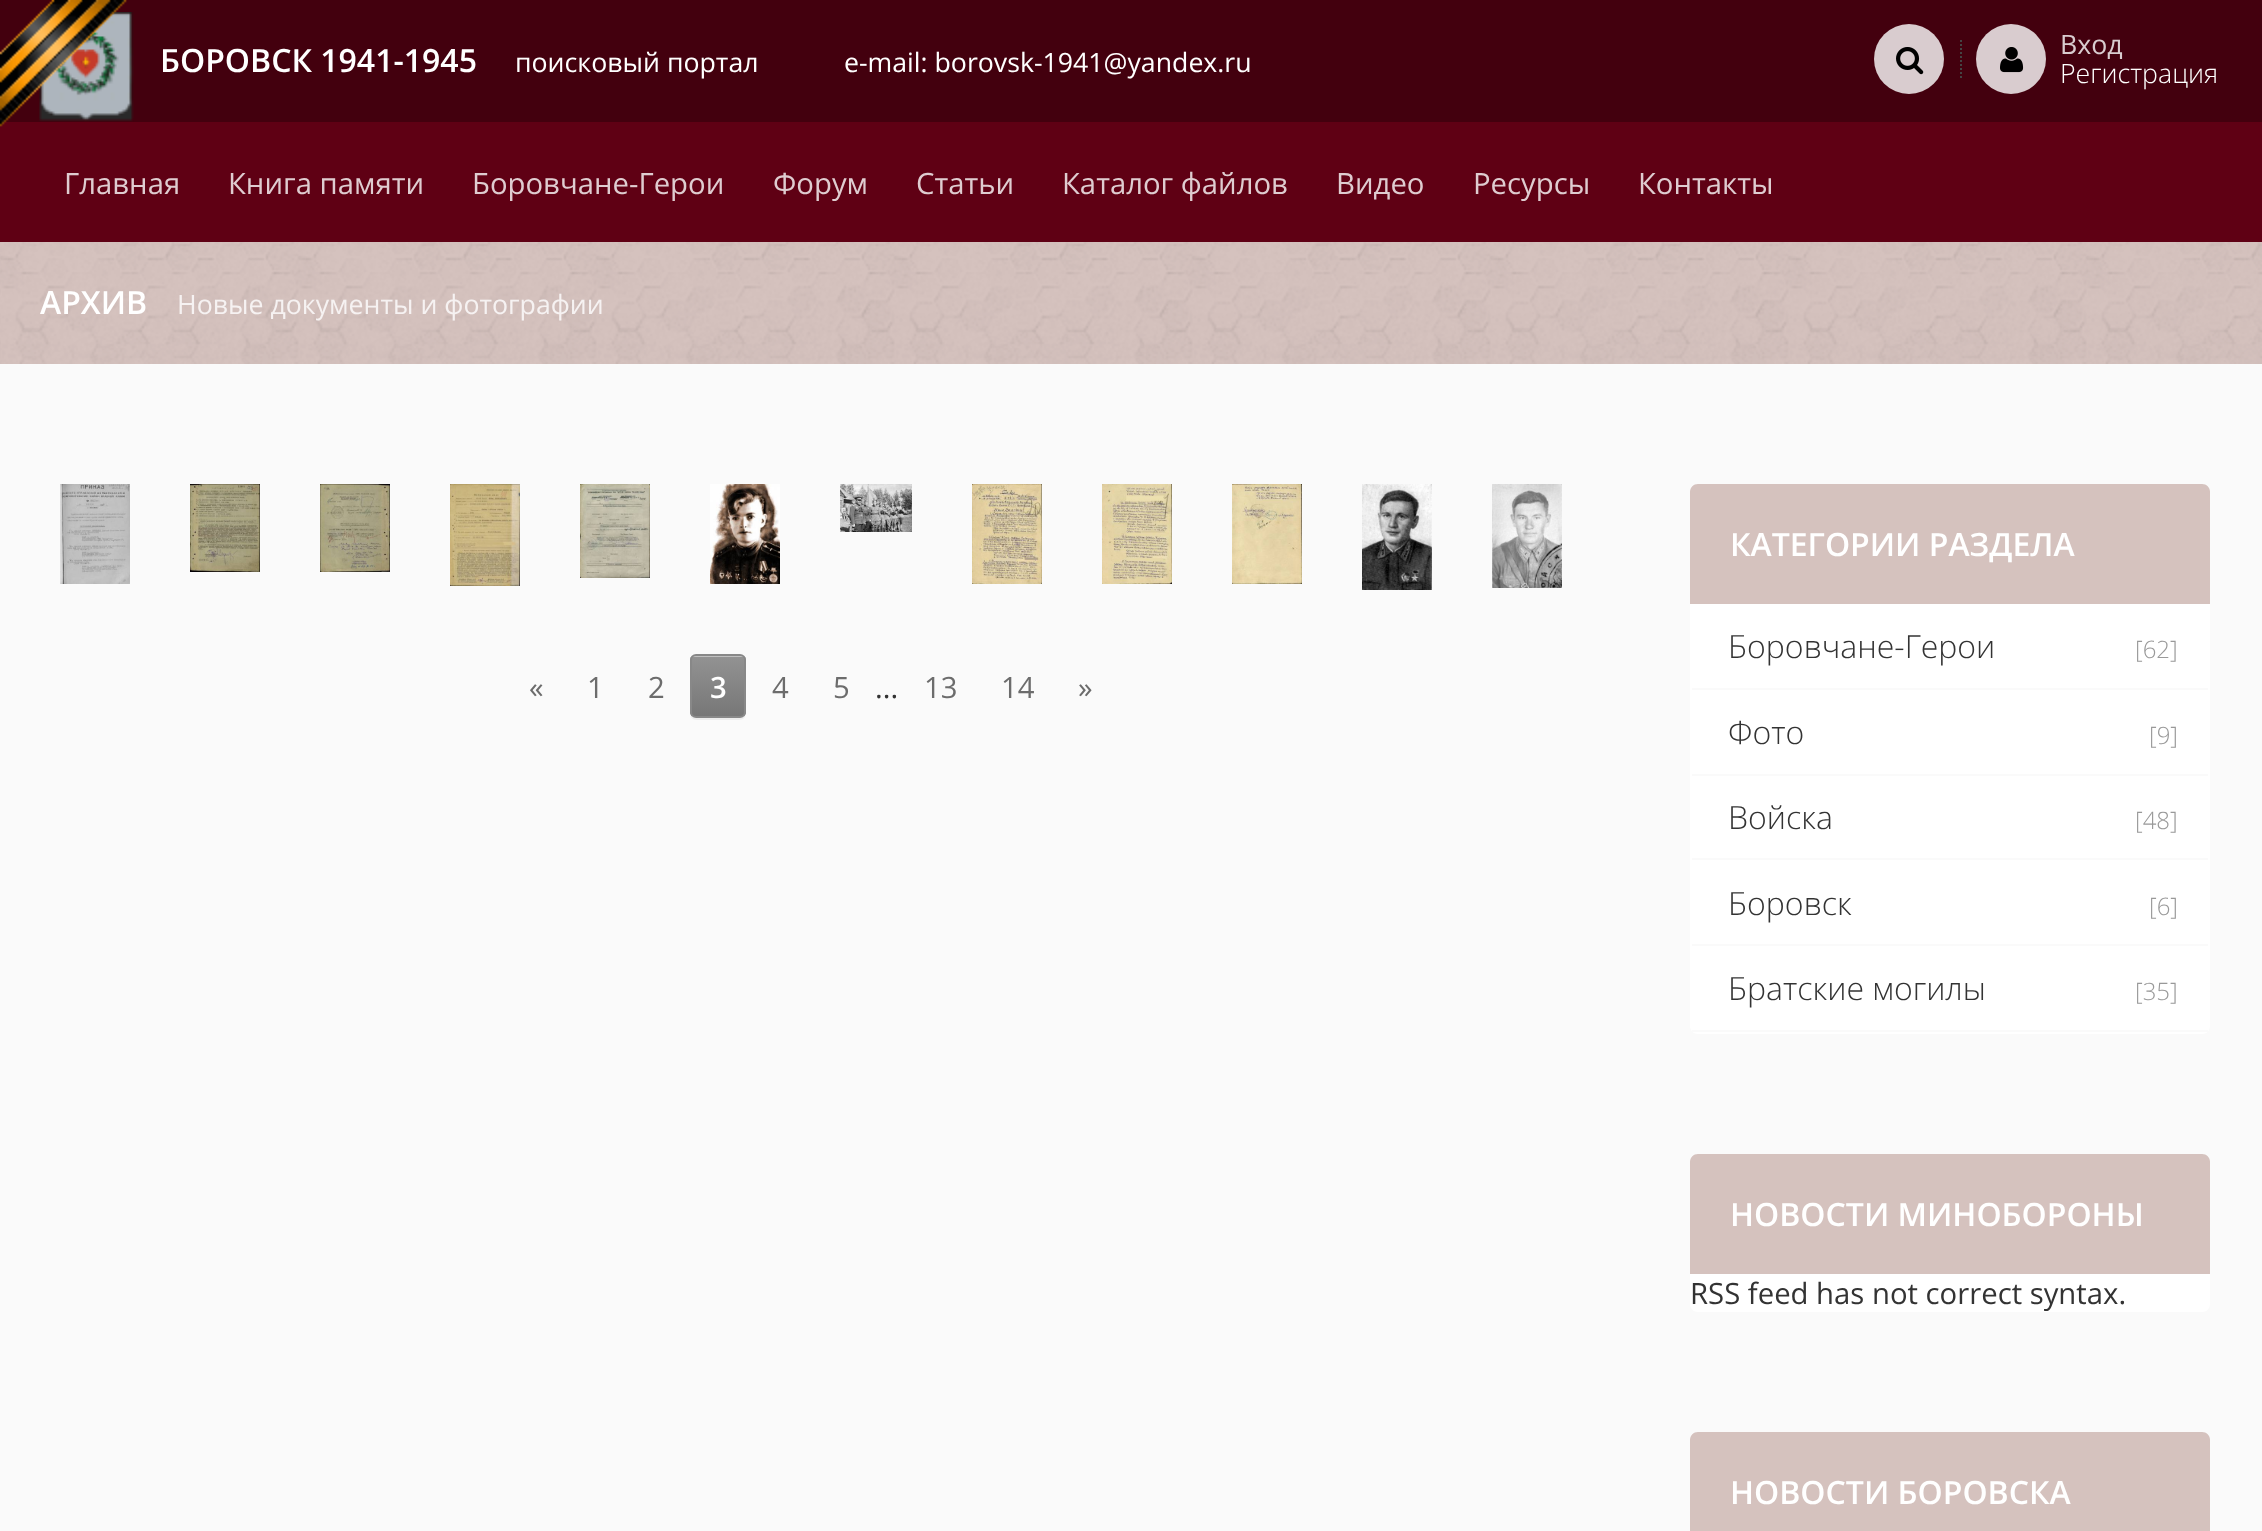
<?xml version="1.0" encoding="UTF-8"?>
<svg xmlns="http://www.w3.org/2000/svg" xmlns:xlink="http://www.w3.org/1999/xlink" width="2262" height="1531">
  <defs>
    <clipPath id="clip1"><rect x="690" y="654" width="56" height="64" rx="6" /></clipPath>
    <linearGradient id="g1" gradientUnits="userSpaceOnUse" x1="692" y1="656" x2="692" y2="716"><stop offset="0.02" stop-color="#c0c0c0" /><stop offset="0.02" stop-color="#929292" /><stop offset="1" stop-color="#777777" /></linearGradient>
  </defs>
  <rect width="100%" height="100%" fill="#fafafa" />
  <rect y="122" width="2262" height="120" fill="#5f0014" />
  <rect width="2262" height="122" fill="#43000e" />
  <image x="39" y="12" width="95" height="110" xlink:href="image2.png" />
  <image x="0" y="0" width="127" height="127" xlink:href="image1.png" />
  <circle cx="1909" cy="59" r="35" fill="#d9cccf" />
  <image x="1896" y="47" width="28" height="28" xlink:href="image3.png" />
  <path d="M 1961 40 v 40" fill="none" stroke="#444444" stroke-width="2" stroke-dasharray="2 2" />
  <circle cx="2011" cy="59" r="35" fill="#d9cccf" />
  <image x="2000" y="47" width="24" height="26" xlink:href="image4.png" />
  <rect y="242" width="2262" height="122" fill="#d5c2be" />
  <image x="0" y="242" width="2262" height="122" xlink:href="image5.png" />
  <image x="60" y="484" width="70" height="100" xlink:href="image6.png" />
  <image x="190" y="484" width="70" height="88" xlink:href="image7.png" />
  <image x="320" y="484" width="70" height="88" xlink:href="image8.png" />
  <image x="450" y="484" width="70" height="102" xlink:href="image9.png" />
  <image x="580" y="484" width="70" height="94" xlink:href="image10.png" />
  <image x="710" y="484" width="70" height="100" xlink:href="image11.png" />
  <image x="840" y="484" width="72" height="48" xlink:href="image12.png" />
  <image x="972" y="484" width="70" height="100" xlink:href="image13.png" />
  <image x="1102" y="484" width="70" height="100" xlink:href="image14.png" />
  <image x="1232" y="484" width="70" height="100" xlink:href="image15.png" />
  <image x="1362" y="484" width="70" height="106" xlink:href="image16.png" />
  <image x="1492" y="484" width="70" height="104" xlink:href="image17.png" />
  <path d="M 690 712 c 0 9 6 8 13 8 h 30 c 7 0 13 1 13 -8 c 0 3 -3 6 -6 6 h -44 c -3 0 -6 -3 -6 -6 z" fill="#ededed" />
  <g clip-path="url(#clip1)">
    <rect x="690" y="656" width="56" height="60" fill="url(#g1)" />
  </g>
  <rect x="691" y="655" width="54" height="62" rx="5" fill="none" stroke="#888888" stroke-width="2" />
  <path d="M 1698 484 h 504 c 4.5 0 8 3.5 8 8 v 112 h -520 v -112 c 0 -4.5 3.5 -8 8 -8 z" fill="#d5c2be" />
  <path d="M 1690 604 h 520 v 422 c 0 4.5 -3.5 8 -8 8 h -504 c -4.5 0 -8 -3.5 -8 -8 z" fill="#ffffff" />
  <rect x="1692" y="688" width="516" height="2" fill="#fafafa" />
  <rect x="1692" y="774" width="516" height="2" fill="#fafafa" />
  <rect x="1692" y="858" width="516" height="2" fill="#fafafa" />
  <rect x="1692" y="944" width="516" height="2" fill="#fafafa" />
  <rect x="1692" y="1030" width="516" height="2" fill="#fafafa" />
  <path d="M 1698 1154 h 504 c 4.5 0 8 3.5 8 8 v 112 h -520 v -112 c 0 -4.5 3.5 -8 8 -8 z" fill="#d5c2be" />
  <path d="M 1690 1274 h 520 v 30 c 0 4.5 -3.5 8 -8 8 h -504 c -4.5 0 -8 -3.5 -8 -8 z" fill="#ffffff" />
  <path d="M 1698 1432 h 504 c 4.5 0 8 3.5 8 8 v 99 h -520 v -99 c 0 -4.5 3.5 -8 8 -8 z" fill="#d5c2be" />
  <text x="160" y="72" style="font-family: Open Sans; font-size: 32px; font-weight: 600; fill: #ffffff">БОРОВСК 1941-1945</text>
  <text x="515" y="72" style="font-family: Open Sans; font-size: 26.7px; fill: #ffffff">поисковый портал</text>
  <text x="844" y="72" style="font-family: Open Sans; font-size: 26.7px; fill: #ffffff">e-mail: borovsk-1941@yandex.ru</text>
  <text x="2060" y="54" style="font-family: Open Sans; font-size: 26.7px; fill: #d9cccf">Вход</text>
  <text x="2060" y="83" style="font-family: Open Sans; font-size: 26.7px; font-weight: 300; fill: #ffffff">Регистрация</text>
  <text x="64" y="194" style="font-family: Open Sans; font-size: 29.3px; fill: #dfccd0">Главная</text>
  <text x="228" y="194" style="font-family: Open Sans; font-size: 29.3px; fill: #dfccd0">Книга памяти</text>
  <text x="472" y="194" style="font-family: Open Sans; font-size: 29.3px; fill: #dfccd0">Боровчане-Герои</text>
  <text x="773" y="194" style="font-family: Open Sans; font-size: 29.3px; fill: #dfccd0">Форум</text>
  <text x="916" y="194" style="font-family: Open Sans; font-size: 29.3px; fill: #dfccd0">Статьи</text>
  <text x="1062" y="194" style="font-family: Open Sans; font-size: 29.3px; fill: #dfccd0">Каталог файлов</text>
  <text x="1336" y="194" style="font-family: Open Sans; font-size: 29.3px; fill: #dfccd0">Видео</text>
  <text x="1473" y="194" style="font-family: Open Sans; font-size: 29.3px; fill: #dfccd0">Ресурсы</text>
  <text x="1638" y="194" style="font-family: Open Sans; font-size: 29.3px; fill: #dfccd0">Контакты</text>
  <text x="40" y="314" style="font-family: Open Sans; font-size: 32px; font-weight: 600; fill: #ffffff">АРХИВ</text>
  <text x="177" y="314" style="font-family: Open Sans; font-size: 26.7px; fill: #f6f2f2">Новые документы и фотографии</text>
  <text x="529" y="698" style="font-family: Open Sans; font-size: 29.3px; fill: #6c6c6c">«</text>
  <text x="587" y="698" style="font-family: Open Sans; font-size: 29.3px; fill: #6c6c6c">1</text>
  <text x="648" y="698" style="font-family: Open Sans; font-size: 29.3px; fill: #6c6c6c">2</text>
  <text x="710" y="698" style="font-family: Open Sans; font-size: 29.3px; font-weight: 600; fill: #ffffff">3</text>
  <text x="772" y="698" style="font-family: Open Sans; font-size: 29.3px; fill: #6c6c6c">4</text>
  <text x="833" y="698" style="font-family: Open Sans; font-size: 29.3px; fill: #6c6c6c">5</text>
  <text x="875" y="698" style="font-family: Open Sans; font-size: 29.3px; fill: #333333">...</text>
  <text x="924" y="698" style="font-family: Open Sans; font-size: 29.3px; fill: #6c6c6c">13</text>
  <text x="1001" y="698" style="font-family: Open Sans; font-size: 29.3px; fill: #6c6c6c">14</text>
  <text x="1078" y="698" style="font-family: Open Sans; font-size: 29.3px; fill: #6c6c6c">»</text>
  <text x="1730" y="556" style="font-family: Open Sans; font-size: 32px; font-weight: 600; fill: #ffffff">КАТЕГОРИИ РАЗДЕЛА</text>
  <text x="1728" y="658" style="font-family: Open Sans; font-size: 32px; font-weight: 300; fill: #333333">Боровчане-Герои</text>
  <text x="2135" y="658" style="font-family: Open Sans; font-size: 24px; font-weight: 300; fill: #999999">[62]</text>
  <text x="1728" y="744" style="font-family: Open Sans; font-size: 32px; font-weight: 300; fill: #333333">Фото</text>
  <text x="2149" y="744" style="font-family: Open Sans; font-size: 24px; font-weight: 300; fill: #999999">[9]</text>
  <text x="1728" y="829" style="font-family: Open Sans; font-size: 32px; font-weight: 300; fill: #333333">Войска</text>
  <text x="2135" y="829" style="font-family: Open Sans; font-size: 24px; font-weight: 300; fill: #999999">[48]</text>
  <text x="1728" y="915" style="font-family: Open Sans; font-size: 32px; font-weight: 300; fill: #333333">Боровск</text>
  <text x="2149" y="915" style="font-family: Open Sans; font-size: 24px; font-weight: 300; fill: #999999">[6]</text>
  <text x="1728" y="1000" style="font-family: Open Sans; font-size: 32px; font-weight: 300; fill: #333333">Братские могилы</text>
  <text x="2135" y="1000" style="font-family: Open Sans; font-size: 24px; font-weight: 300; fill: #999999">[35]</text>
  <text x="1730" y="1226" style="font-family: Open Sans; font-size: 32px; font-weight: 600; fill: #ffffff">НОВОСТИ МИНОБОРОНЫ</text>
  <text x="1690" y="1304" style="font-family: Open Sans; font-size: 29.3px; fill: #333333">RSS feed has not correct syntax.</text>
  <text x="1730" y="1504" style="font-family: Open Sans; font-size: 32px; font-weight: 600; fill: #ffffff">НОВОСТИ БОРОВСКА</text>
</svg>
